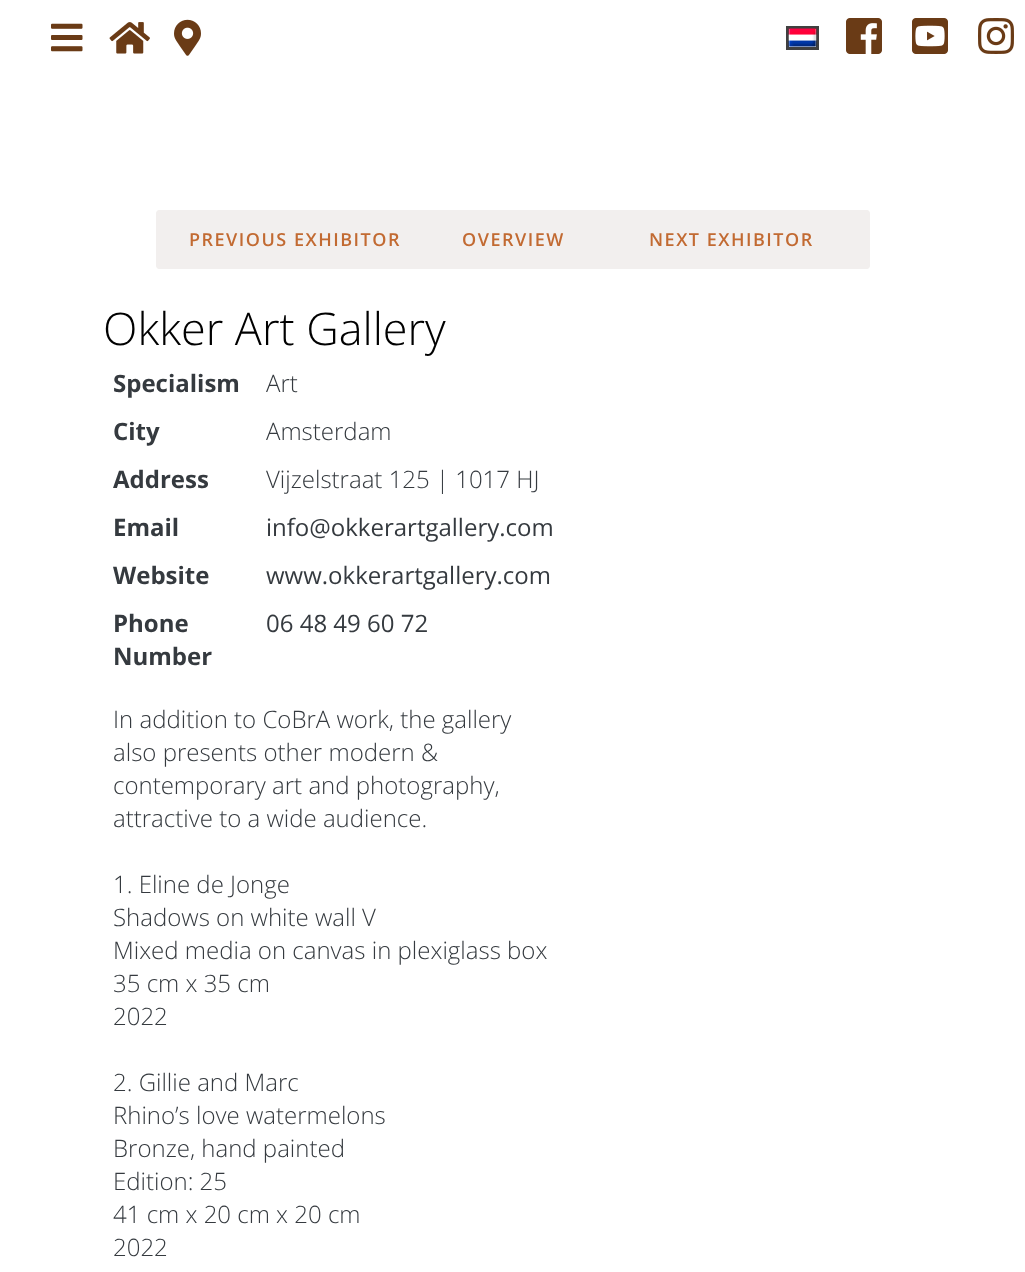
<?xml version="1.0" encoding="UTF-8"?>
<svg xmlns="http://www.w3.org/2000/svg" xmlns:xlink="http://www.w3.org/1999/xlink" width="1025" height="1272">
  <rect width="100%" height="100%" fill="#ffffff" />
  <image x="51" y="23" width="32" height="29" xlink:href="image1.png" />
  <image x="109" y="22" width="41" height="32" xlink:href="image2.png" />
  <image x="174" y="19" width="27" height="37" xlink:href="image3.png" />
  <rect x="787.5" y="27.5" width="30" height="21" fill="none" stroke="#404040" stroke-width="3" />
  <image x="788" y="28" width="29" height="19" xlink:href="image4.png" />
  <image x="846" y="18" width="36" height="36" xlink:href="image5.png" />
  <image x="912" y="18" width="36" height="36" xlink:href="image6.png" />
  <image x="978" y="18" width="36" height="36" xlink:href="image7.png" />
  <path d="M 159 210 h 276 v 59 h -276 c -1.5 0 -3 -1.5 -3 -3 v -53 c 0 -1.5 1.5 -3 3 -3 z" fill="#f2efee" />
  <rect x="435" y="210" width="156" height="59" fill="#f2efee" />
  <path d="M 591 210 h 276 c 1.5 0 3 1.5 3 3 v 53 c 0 1.5 -1.5 3 -3 3 h -276 z" fill="#f2efee" />
  <text x="189" y="246" style="font-family: Open Sans; font-size: 18px; font-weight: 600; letter-spacing: 1.5px; fill: #c26a32">PREVIOUS EXHIBITOR</text>
  <text x="462" y="246" style="font-family: Open Sans; font-size: 18px; font-weight: 600; letter-spacing: 1.5px; fill: #c26a32">OVERVIEW</text>
  <text x="649" y="246" style="font-family: Open Sans; font-size: 18px; font-weight: 600; letter-spacing: 1.5px; fill: #c26a32">NEXT EXHIBITOR</text>
  <text x="103" y="345" style="font-family: Open Sans; font-size: 45px; font-weight: 300; fill: #000000">Okker Art Gallery</text>
  <text x="113" y="392" style="font-family: Open Sans; font-size: 24px; font-weight: bold; fill: #353a3f">Specialism</text>
  <text x="266" y="392" style="font-family: Open Sans; font-size: 24px; font-weight: 300; fill: #353a3f">Art</text>
  <text x="113" y="440" style="font-family: Open Sans; font-size: 24px; font-weight: bold; fill: #353a3f">City</text>
  <text x="266" y="440" style="font-family: Open Sans; font-size: 24px; font-weight: 300; fill: #353a3f">Amsterdam</text>
  <text x="113" y="488" style="font-family: Open Sans; font-size: 24px; font-weight: bold; fill: #353a3f">Address</text>
  <text x="266" y="488" style="font-family: Open Sans; font-size: 24px; font-weight: 300; fill: #353a3f">Vijzelstraat 125 | 1017 HJ</text>
  <text x="113" y="536" style="font-family: Open Sans; font-size: 24px; font-weight: bold; fill: #353a3f">Email</text>
  <text x="266" y="536" style="font-family: Open Sans; font-size: 24px; fill: #353a3f">info@okkerartgallery.com</text>
  <text x="113" y="584" style="font-family: Open Sans; font-size: 24px; font-weight: bold; fill: #353a3f">Website</text>
  <text x="266" y="584" style="font-family: Open Sans; font-size: 24px; fill: #353a3f">www.okkerartgallery.com</text>
  <text x="113" y="632" style="font-family: Open Sans; font-size: 24px; font-weight: bold; fill: #353a3f">Phone</text>
  <text x="113" y="665" style="font-family: Open Sans; font-size: 24px; font-weight: bold; fill: #353a3f">Number</text>
  <text x="266" y="632" style="font-family: Open Sans; font-size: 24px; fill: #353a3f">06 48 49 60 72</text>
  <text x="113" y="728" style="font-family: Open Sans; font-size: 24px; font-weight: 300; fill: #353a3f">In addition to CoBrA work, the gallery</text>
  <text x="113" y="761" style="font-family: Open Sans; font-size: 24px; font-weight: 300; fill: #353a3f">also presents other modern &amp;</text>
  <text x="113" y="794" style="font-family: Open Sans; font-size: 24px; font-weight: 300; fill: #353a3f">contemporary art and photography,</text>
  <text x="113" y="827" style="font-family: Open Sans; font-size: 24px; font-weight: 300; fill: #353a3f">attractive to a wide audience.</text>
  <text x="113" y="893" style="font-family: Open Sans; font-size: 24px; font-weight: 300; fill: #353a3f">1. Eline de Jonge</text>
  <text x="113" y="926" style="font-family: Open Sans; font-size: 24px; font-weight: 300; fill: #353a3f">Shadows on white wall V</text>
  <text x="113" y="959" style="font-family: Open Sans; font-size: 24px; font-weight: 300; fill: #353a3f">Mixed media on canvas in plexiglass box</text>
  <text x="113" y="992" style="font-family: Open Sans; font-size: 24px; font-weight: 300; fill: #353a3f">35 cm x 35 cm</text>
  <text x="113" y="1025" style="font-family: Open Sans; font-size: 24px; font-weight: 300; fill: #353a3f">2022</text>
  <text x="113" y="1091" style="font-family: Open Sans; font-size: 24px; font-weight: 300; fill: #353a3f">2. Gillie and Marc</text>
  <text x="113" y="1124" style="font-family: Open Sans; font-size: 24px; font-weight: 300; fill: #353a3f">Rhino’s love watermelons</text>
  <text x="113" y="1157" style="font-family: Open Sans; font-size: 24px; font-weight: 300; fill: #353a3f">Bronze, hand painted</text>
  <text x="113" y="1190" style="font-family: Open Sans; font-size: 24px; font-weight: 300; fill: #353a3f">Edition: 25</text>
  <text x="113" y="1223" style="font-family: Open Sans; font-size: 24px; font-weight: 300; fill: #353a3f">41 cm x 20 cm x 20 cm</text>
  <text x="113" y="1256" style="font-family: Open Sans; font-size: 24px; font-weight: 300; fill: #353a3f">2022</text>
</svg>
